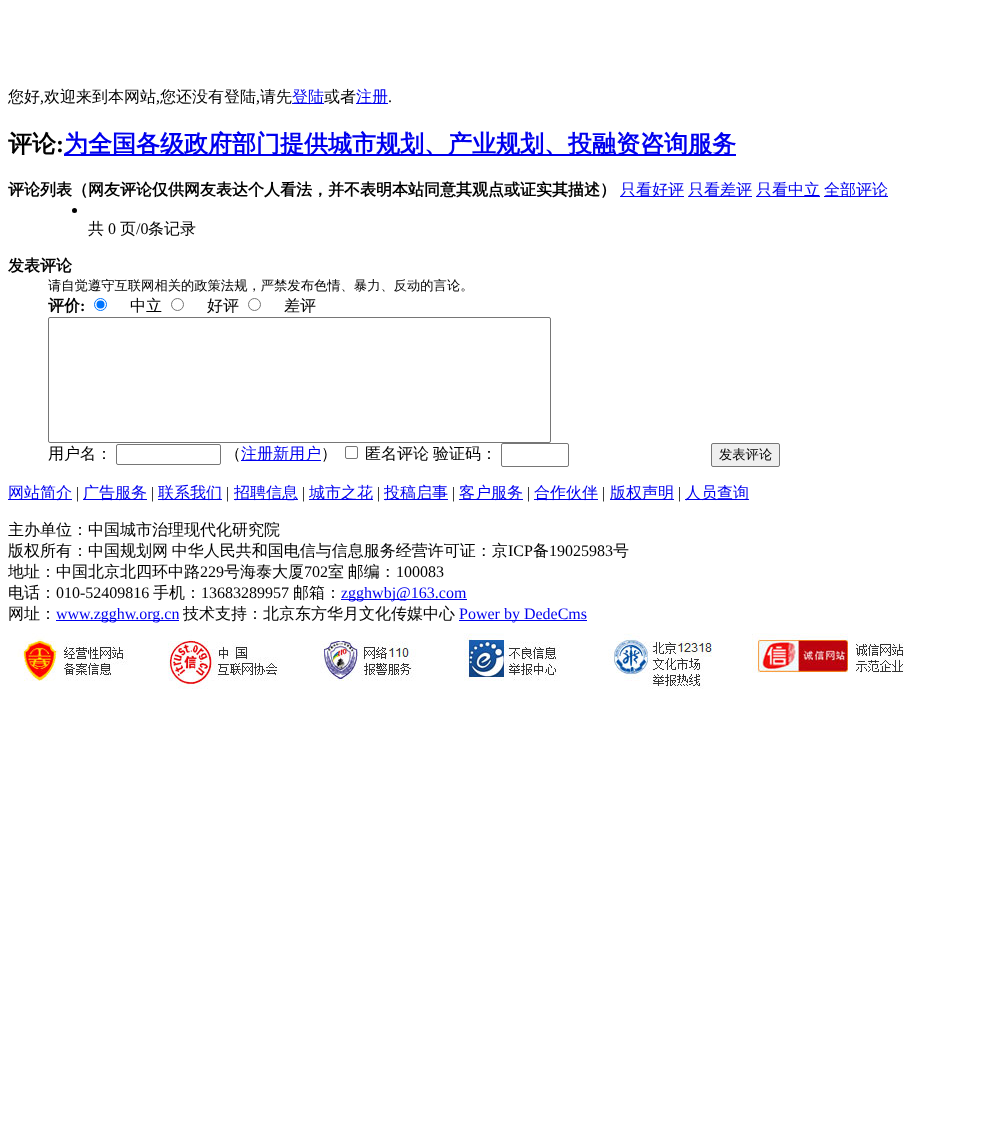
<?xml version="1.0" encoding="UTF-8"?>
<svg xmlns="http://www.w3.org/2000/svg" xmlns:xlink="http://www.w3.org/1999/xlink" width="1002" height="1141">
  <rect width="100%" height="100%" fill="#ffffff" />
  <rect x="292" y="103" width="32" height="1" fill="#0000ee" />
  <rect x="356" y="103" width="32" height="1" fill="#0000ee" />
  <rect x="64" y="154" width="672" height="2" fill="#0000ee" />
  <rect x="620" y="196" width="64" height="1" fill="#0000ee" />
  <rect x="688" y="196" width="64" height="1" fill="#0000ee" />
  <rect x="756" y="196" width="64" height="1" fill="#0000ee" />
  <rect x="824" y="196" width="64" height="1" fill="#0000ee" />
  <circle cx="74.5" cy="210.5" r="2.5" fill="#000000" />
  <circle cx="100.5" cy="304.5" r="6" fill="none" stroke="#0075ff" />
  <circle cx="100.5" cy="304.5" r="4" fill="#0075ff" />
  <circle cx="177.5" cy="304.5" r="6" fill="none" stroke="#767676" />
  <circle cx="254.5" cy="304.5" r="6" fill="none" stroke="#767676" />
  <rect x="48.5" y="317.5" width="502" height="125" rx="1.5" fill="none" stroke="#767676" />
  <rect x="116.5" y="444.5" width="104" height="20" rx="1.5" fill="none" stroke="#767676" />
  <rect x="241" y="460" width="80" height="1" fill="#0000ee" />
  <rect x="345.5" y="446.5" width="12" height="12" rx="1.5" fill="none" stroke="#767676" />
  <rect x="501.5" y="443.5" width="67" height="23" rx="1.5" fill="none" stroke="#767676" />
  <rect x="711.5" y="443.5" width="68" height="23" rx="1.5" fill="#efefef" stroke="#767676" />
  <rect x="8" y="499" width="64" height="1" fill="#0000ee" />
  <rect x="83" y="499" width="64" height="1" fill="#0000ee" />
  <rect x="158" y="499" width="64" height="1" fill="#0000ee" />
  <rect x="234" y="499" width="64" height="1" fill="#0000ee" />
  <rect x="309" y="499" width="64" height="1" fill="#0000ee" />
  <rect x="384" y="499" width="64" height="1" fill="#0000ee" />
  <rect x="459" y="499" width="64" height="1" fill="#0000ee" />
  <rect x="534" y="499" width="64" height="1" fill="#0000ee" />
  <rect x="610" y="499" width="64" height="1" fill="#0000ee" />
  <rect x="685" y="499" width="64" height="1" fill="#0000ee" />
  <rect x="341" y="599" width="126" height="1" fill="#0000ee" />
  <rect x="56" y="620" width="123" height="1" fill="#0000ee" />
  <rect x="459" y="620" width="128" height="1" fill="#0000ee" />
  <image x="17" y="633" width="887" height="56" xlink:href="image1.png" />
  <text x="8" y="102" style="font-family: WenQuanYi Zen Hei; font-size: 16px; font-weight: 500; fill: #000000">您好</text>
  <text x="40" y="102" style="font-family: Liberation Serif; font-size: 16px; fill: #000000">,</text>
  <text x="44" y="102" style="font-family: WenQuanYi Zen Hei; font-size: 16px; font-weight: 500; fill: #000000">欢迎来到本网站</text>
  <text x="156" y="102" style="font-family: Liberation Serif; font-size: 16px; fill: #000000">,</text>
  <text x="160" y="102" style="font-family: WenQuanYi Zen Hei; font-size: 16px; font-weight: 500; fill: #000000">您还没有登陆</text>
  <text x="256" y="102" style="font-family: Liberation Serif; font-size: 16px; fill: #000000">,</text>
  <text x="260" y="102" style="font-family: WenQuanYi Zen Hei; font-size: 16px; font-weight: 500; fill: #000000">请先</text>
  <text x="292" y="102" style="font-family: WenQuanYi Zen Hei; font-size: 16px; font-weight: 500; fill: #0000ee">登陆</text>
  <text x="324" y="102" style="font-family: WenQuanYi Zen Hei; font-size: 16px; font-weight: 500; fill: #000000">或者</text>
  <text x="356" y="102" style="font-family: WenQuanYi Zen Hei; font-size: 16px; font-weight: 500; fill: #0000ee">注册</text>
  <text x="388" y="102" style="font-family: Liberation Serif; font-size: 16px; fill: #000000">.</text>
  <text x="8" y="152" style="font-family: WenQuanYi Zen Hei; font-size: 24px; font-weight: bold; fill: #000000">评论</text>
  <text x="56" y="152" style="font-family: Liberation Serif; font-size: 24px; font-weight: bold; fill: #000000">:</text>
  <text x="64" y="152" style="font-family: WenQuanYi Zen Hei; font-size: 24px; font-weight: bold; fill: #0000ee">为全国各级政府部门提供城市规划、产业规划、投融资咨询服务</text>
  <text x="8" y="195" style="font-family: WenQuanYi Zen Hei; font-size: 16px; font-weight: bold; fill: #000000">评论列表（网友评论仅供网友表达个人看法，并不表明本站同意其观点或证实其描述）</text>
  <text x="620" y="195" style="font-family: WenQuanYi Zen Hei; font-size: 16px; font-weight: 500; fill: #0000ee">只看好评</text>
  <text x="688" y="195" style="font-family: WenQuanYi Zen Hei; font-size: 16px; font-weight: 500; fill: #0000ee">只看差评</text>
  <text x="756" y="195" style="font-family: WenQuanYi Zen Hei; font-size: 16px; font-weight: 500; fill: #0000ee">只看中立</text>
  <text x="824" y="195" style="font-family: WenQuanYi Zen Hei; font-size: 16px; font-weight: 500; fill: #0000ee">全部评论</text>
  <text x="88" y="234" style="font-family: WenQuanYi Zen Hei; font-size: 16px; font-weight: 500; fill: #000000">共</text>
  <text x="108" y="234" style="font-family: Liberation Serif; font-size: 16px; fill: #000000">0</text>
  <text x="120" y="234" style="font-family: WenQuanYi Zen Hei; font-size: 16px; font-weight: 500; fill: #000000">页</text>
  <text x="136" y="234" style="font-family: Liberation Serif; font-size: 16px; fill: #000000">/0</text>
  <text x="148" y="234" style="font-family: WenQuanYi Zen Hei; font-size: 16px; font-weight: 500; fill: #000000">条记录</text>
  <text x="8" y="271" style="font-family: WenQuanYi Zen Hei; font-size: 16px; font-weight: bold; fill: #000000">发表评论</text>
  <text x="48" y="290" style="font-family: WenQuanYi Zen Hei; font-size: 13.3px; font-weight: 500; fill: #000000">请自觉遵守互联网相关的政策法规，严禁发布色情、暴力、反动的言论。</text>
  <text x="48" y="311" style="font-family: WenQuanYi Zen Hei; font-size: 16px; font-weight: bold; fill: #000000">评价</text>
  <text x="80" y="311" style="font-family: Liberation Serif; font-size: 16px; font-weight: bold; fill: #000000">:</text>
  <text x="130" y="311" style="font-family: WenQuanYi Zen Hei; font-size: 16px; font-weight: 500; fill: #000000">中立</text>
  <text x="207" y="311" style="font-family: WenQuanYi Zen Hei; font-size: 16px; font-weight: 500; fill: #000000">好评</text>
  <text x="284" y="311" style="font-family: WenQuanYi Zen Hei; font-size: 16px; font-weight: 500; fill: #000000">差评</text>
  <text x="48" y="459" style="font-family: WenQuanYi Zen Hei; font-size: 16px; font-weight: 500; fill: #000000">用户名：</text>
  <text x="225" y="459" style="font-family: WenQuanYi Zen Hei; font-size: 16px; font-weight: 500; fill: #000000">（</text>
  <text x="241" y="459" style="font-family: WenQuanYi Zen Hei; font-size: 16px; font-weight: 500; fill: #0000ee">注册新用户</text>
  <text x="321" y="459" style="font-family: WenQuanYi Zen Hei; font-size: 16px; font-weight: 500; fill: #000000">）</text>
  <text x="365" y="459" style="font-family: WenQuanYi Zen Hei; font-size: 16px; font-weight: 500; fill: #000000">匿名评论</text>
  <text x="433" y="459" style="font-family: WenQuanYi Zen Hei; font-size: 16px; font-weight: 500; fill: #000000">验证码：</text>
  <text x="719" y="459" style="font-family: WenQuanYi Zen Hei; font-size: 13.3px; font-weight: 500; fill: #000000">发表评论</text>
  <text x="8" y="498" style="font-family: WenQuanYi Zen Hei; font-size: 16px; font-weight: 500; fill: #0000ee">网站简介</text>
  <text x="76" y="498" style="font-family: Liberation Serif; font-size: 16px; fill: #000000">|</text>
  <text x="83" y="498" style="font-family: WenQuanYi Zen Hei; font-size: 16px; font-weight: 500; fill: #0000ee">广告服务</text>
  <text x="151" y="498" style="font-family: Liberation Serif; font-size: 16px; fill: #000000">|</text>
  <text x="158" y="498" style="font-family: WenQuanYi Zen Hei; font-size: 16px; font-weight: 500; fill: #0000ee">联系我们</text>
  <text x="226" y="498" style="font-family: Liberation Serif; font-size: 16px; fill: #000000">|</text>
  <text x="234" y="498" style="font-family: WenQuanYi Zen Hei; font-size: 16px; font-weight: 500; fill: #0000ee">招聘信息</text>
  <text x="302" y="498" style="font-family: Liberation Serif; font-size: 16px; fill: #000000">|</text>
  <text x="309" y="498" style="font-family: WenQuanYi Zen Hei; font-size: 16px; font-weight: 500; fill: #0000ee">城市之花</text>
  <text x="377" y="498" style="font-family: Liberation Serif; font-size: 16px; fill: #000000">|</text>
  <text x="384" y="498" style="font-family: WenQuanYi Zen Hei; font-size: 16px; font-weight: 500; fill: #0000ee">投稿启事</text>
  <text x="452" y="498" style="font-family: Liberation Serif; font-size: 16px; fill: #000000">|</text>
  <text x="459" y="498" style="font-family: WenQuanYi Zen Hei; font-size: 16px; font-weight: 500; fill: #0000ee">客户服务</text>
  <text x="527" y="498" style="font-family: Liberation Serif; font-size: 16px; fill: #000000">|</text>
  <text x="534" y="498" style="font-family: WenQuanYi Zen Hei; font-size: 16px; font-weight: 500; fill: #0000ee">合作伙伴</text>
  <text x="602" y="498" style="font-family: Liberation Serif; font-size: 16px; fill: #000000">|</text>
  <text x="610" y="498" style="font-family: WenQuanYi Zen Hei; font-size: 16px; font-weight: 500; fill: #0000ee">版权声明</text>
  <text x="678" y="498" style="font-family: Liberation Serif; font-size: 16px; fill: #000000">|</text>
  <text x="685" y="498" style="font-family: WenQuanYi Zen Hei; font-size: 16px; font-weight: 500; fill: #0000ee">人员查询</text>
  <text x="8" y="535" style="font-family: WenQuanYi Zen Hei; font-size: 16px; font-weight: 500; fill: #000000">主办单位：中国城市治理现代化研究院</text>
  <text x="8" y="556" word-spacing="-1" style="font-family: WenQuanYi Zen Hei; font-size: 16px; font-weight: 500; fill: #000000">版权所有：中国规划网 中华人民共和国电信与信息服务经营许可证：京</text>
  <text x="508" y="556" style="font-family: Liberation Serif; font-size: 16px; fill: #000000">ICP</text>
  <text x="533" y="556" style="font-family: WenQuanYi Zen Hei; font-size: 16px; font-weight: 500; fill: #000000">备</text>
  <text x="549" y="556" style="font-family: Liberation Serif; font-size: 16px; fill: #000000">19025983</text>
  <text x="613" y="556" style="font-family: WenQuanYi Zen Hei; font-size: 16px; font-weight: 500; fill: #000000">号</text>
  <text x="8" y="577" style="font-family: WenQuanYi Zen Hei; font-size: 16px; font-weight: 500; fill: #000000">地址：中国北京北四环中路</text>
  <text x="200" y="577" style="font-family: Liberation Serif; font-size: 16px; fill: #000000">229</text>
  <text x="224" y="577" style="font-family: WenQuanYi Zen Hei; font-size: 16px; font-weight: 500; fill: #000000">号海泰大厦</text>
  <text x="304" y="577" style="font-family: Liberation Serif; font-size: 16px; fill: #000000">702</text>
  <text x="328" y="577" word-spacing="-1" style="font-family: WenQuanYi Zen Hei; font-size: 16px; font-weight: 500; fill: #000000">室 邮编：</text>
  <text x="396" y="577" style="font-family: Liberation Serif; font-size: 16px; fill: #000000">100083</text>
  <text x="8" y="598" style="font-family: WenQuanYi Zen Hei; font-size: 16px; font-weight: 500; fill: #000000">电话：</text>
  <text x="56" y="598" style="font-family: Liberation Serif; font-size: 16px; fill: #000000">010-52409816</text>
  <text x="153" y="598" style="font-family: WenQuanYi Zen Hei; font-size: 16px; font-weight: 500; fill: #000000">手机：</text>
  <text x="201" y="598" style="font-family: Liberation Serif; font-size: 16px; fill: #000000">13683289957</text>
  <text x="293" y="598" style="font-family: WenQuanYi Zen Hei; font-size: 16px; font-weight: 500; fill: #000000">邮箱：</text>
  <text x="341" y="598" style="font-family: Liberation Serif; font-size: 16px; fill: #0000ee">zgghwbj@163.com</text>
  <text x="8" y="619" style="font-family: WenQuanYi Zen Hei; font-size: 16px; font-weight: 500; fill: #000000">网址：</text>
  <text x="56" y="619" style="font-family: Liberation Serif; font-size: 16px; fill: #0000ee">www.zgghw.org.cn</text>
  <text x="183" y="619" style="font-family: WenQuanYi Zen Hei; font-size: 16px; font-weight: 500; fill: #000000">技术支持：北京东方华月文化传媒中心</text>
  <text x="459" y="619" style="font-family: Liberation Serif; font-size: 16px; fill: #0000ee">Power by DedeCms</text>
</svg>
